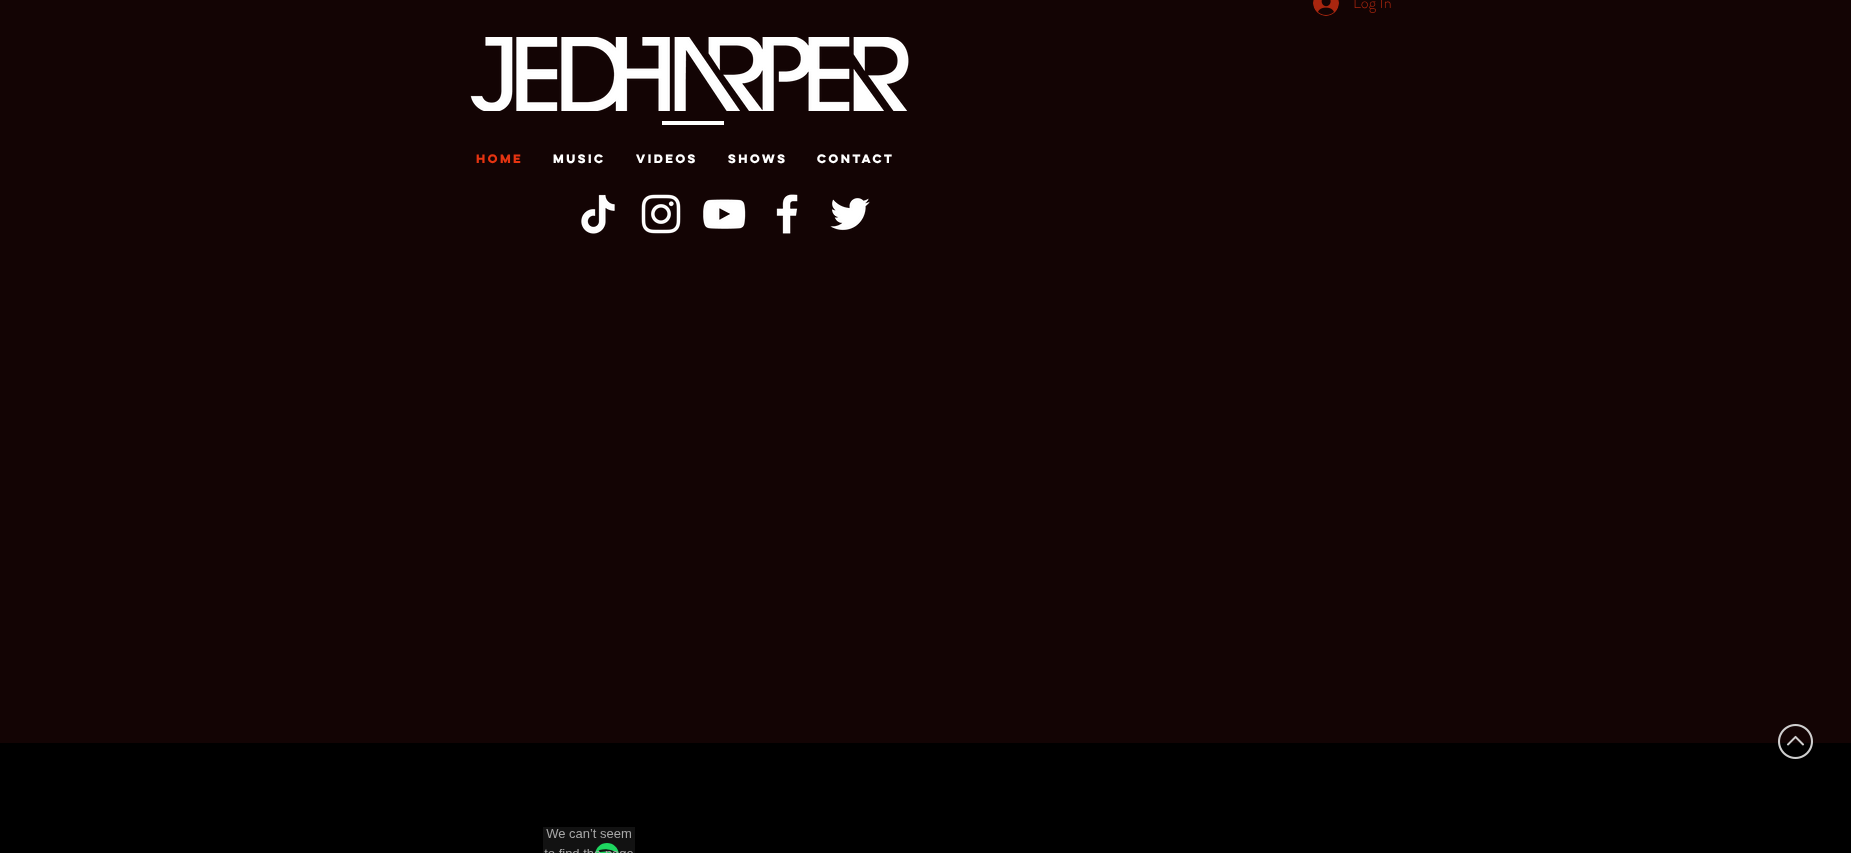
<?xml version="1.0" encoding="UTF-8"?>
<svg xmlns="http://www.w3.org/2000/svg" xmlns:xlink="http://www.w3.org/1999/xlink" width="1851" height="853">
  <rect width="100%" height="100%" fill="#000000" />
  <rect width="1851" height="743" fill="#130404" />
  <image x="1313" y="0" width="26" height="16" xlink:href="image1.png" />
  <image x="470" y="37" width="439" height="74" xlink:href="image2.png" />
  <rect x="662" y="121" width="62" height="4" fill="#fffffe" />
  <image x="581" y="194" width="34" height="40" xlink:href="image3.png" />
  <image x="641" y="194" width="40" height="40" xlink:href="image4.png" />
  <image x="703" y="199" width="43" height="30" xlink:href="image5.png" />
  <image x="776" y="194" width="22" height="40" xlink:href="image6.png" />
  <image x="830" y="198" width="40" height="33" xlink:href="image7.png" />
  <image x="543" y="827" width="92" height="26" xlink:href="image8.png" />
  <image x="1778" y="724" width="35" height="35" xlink:href="image9.png" />
  <text x="1353" y="8" style="font-family: 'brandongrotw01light'; font-size: 16px; font-weight: 300; fill: #a8260f">Log In</text>
  <text x="476" y="163" style="font-family: 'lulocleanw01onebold'; font-size: 11px; font-weight: bold; fill: #e53411">HOME</text>
  <text x="553" y="163" style="font-family: 'lulocleanw01onebold'; font-size: 11px; font-weight: bold; fill: #ffffff">MUSIC</text>
  <text x="636" y="163" style="font-family: 'lulocleanw01onebold'; font-size: 11px; font-weight: bold; fill: #ffffff">VIDEOS</text>
  <text x="728" y="163" style="font-family: 'lulocleanw01onebold'; font-size: 11px; font-weight: bold; fill: #ffffff">SHOWS</text>
  <text x="817" y="163" style="font-family: 'lulocleanw01onebold'; font-size: 11px; font-weight: bold; fill: #ffffff">CONTACT</text>
</svg>
